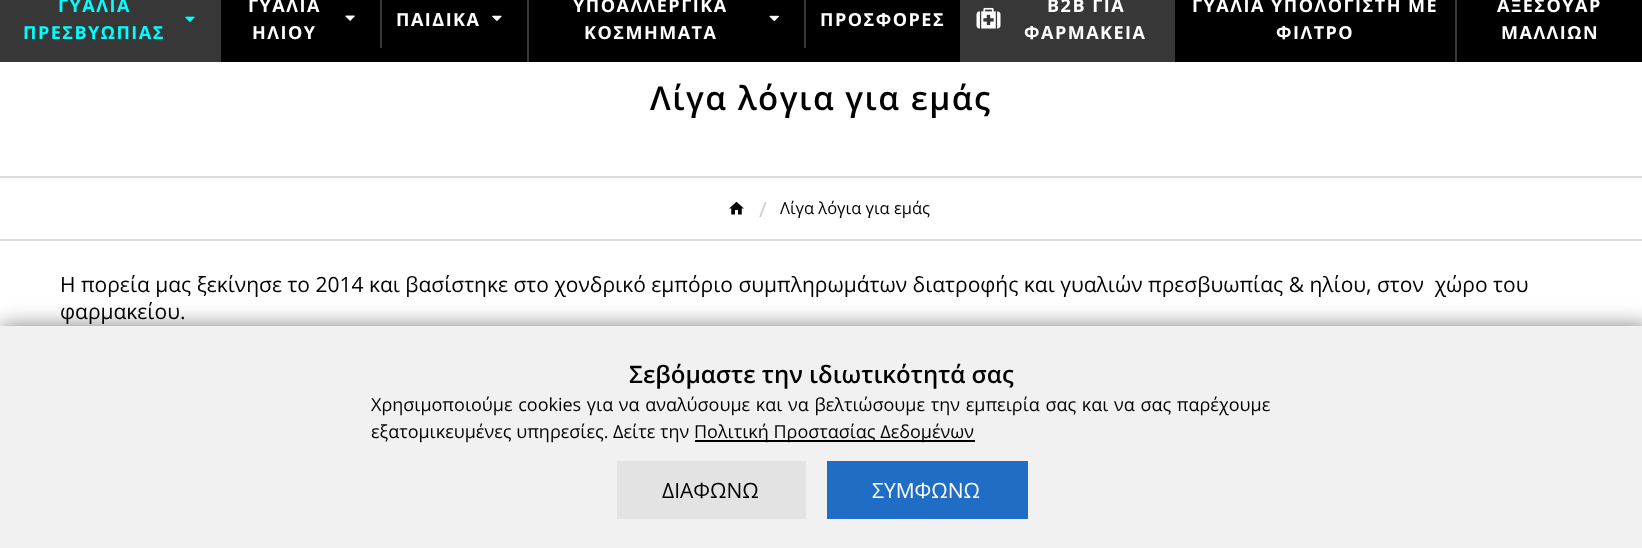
<?xml version="1.0" encoding="UTF-8"?>
<svg xmlns="http://www.w3.org/2000/svg" xmlns:xlink="http://www.w3.org/1999/xlink" width="1642" height="548">
  <rect width="100%" height="100%" fill="#ffffff" />
  <rect x="221" width="1421" height="62" fill="#000000" />
  <rect width="221" height="62" fill="#373737" />
  <image x="185" y="16" width="10" height="6" xlink:href="image1.png" />
  <image x="345" y="15" width="10" height="6" xlink:href="image2.png" />
  <rect x="380" width="2" height="48" fill="#373737" />
  <image x="492" y="15" width="10" height="6" xlink:href="image3.png" />
  <rect x="527" width="2" height="62" fill="#373737" />
  <image x="769" y="15" width="10" height="7" xlink:href="image4.png" />
  <rect x="804" width="2" height="48" fill="#373737" />
  <rect x="960" width="215" height="62" fill="#373737" />
  <image x="976" y="7" width="25" height="22" xlink:href="image5.png" />
  <rect x="1455" width="2" height="62" fill="#373737" />
  <rect y="176" width="1642" height="2" fill="#dddddd" />
  <rect y="239" width="1642" height="2" fill="#dddddd" />
  <image x="729" y="201" width="15" height="14" xlink:href="image6.png" />
  <rect y="326" width="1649" height="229" fill="#7f7f7f" filter="blur(10.5px)" />
  <rect y="326" width="1642" height="222" fill="#f1f1f1" />
  <rect x="695" y="440" width="280" height="2" fill="#000000" />
  <rect x="617" y="461" width="189" height="58" fill="#e3e3e3" />
  <rect x="827" y="461" width="201" height="58" fill="#206dc5" />
  <text x="58" y="12" style="font-family: Open Sans; font-size: 18px; font-weight: bold; letter-spacing: 1.5px; fill: #00ffff">ΓΥΑΛΙΑ</text>
  <text x="23" y="39" style="font-family: Open Sans; font-size: 18px; font-weight: bold; letter-spacing: 1.5px; fill: #00ffff">ΠΡΕΣΒΥΩΠΙΑΣ</text>
  <text x="248" y="12" style="font-family: Open Sans; font-size: 18px; font-weight: bold; letter-spacing: 1.5px; fill: #ffffff">ΓΥΑΛΙΑ</text>
  <text x="252" y="39" style="font-family: Open Sans; font-size: 18px; font-weight: bold; letter-spacing: 1.5px; fill: #ffffff">ΗΛΙΟΥ</text>
  <text x="396" y="26" style="font-family: Open Sans; font-size: 18px; font-weight: bold; letter-spacing: 1.5px; fill: #ffffff">ΠΑΙΔΙΚΑ</text>
  <text x="573" y="12" style="font-family: Open Sans; font-size: 18px; font-weight: bold; letter-spacing: 1.5px; fill: #ffffff">ΥΠΟΑΛΛΕΡΓΙΚΑ</text>
  <text x="584" y="39" style="font-family: Open Sans; font-size: 18px; font-weight: bold; letter-spacing: 1.5px; fill: #ffffff">ΚΟΣΜΗΜΑΤΑ</text>
  <text x="820" y="26" style="font-family: Open Sans; font-size: 18px; font-weight: bold; letter-spacing: 1.5px; fill: #ffffff">ΠΡΟΣΦΟΡΕΣ</text>
  <text x="1047" y="12" style="font-family: Open Sans; font-size: 18px; font-weight: bold; letter-spacing: 1.5px; fill: #ffffff">B2B ΓΙΑ</text>
  <text x="1024" y="39" style="font-family: Open Sans; font-size: 18px; font-weight: bold; letter-spacing: 1.5px; fill: #ffffff">ΦΑΡΜΑΚΕΙΑ</text>
  <text x="1192" y="12" style="font-family: Open Sans; font-size: 18px; font-weight: bold; letter-spacing: 1.5px; fill: #ffffff">ΓΥΑΛΙΑ ΥΠΟΛΟΓΙΣΤΗ ΜΕ</text>
  <text x="1276" y="39" style="font-family: Open Sans; font-size: 18px; font-weight: bold; letter-spacing: 1.5px; fill: #ffffff">ΦΙΛΤΡΟ</text>
  <text x="1497" y="12" style="font-family: Open Sans; font-size: 18px; font-weight: bold; letter-spacing: 1.5px; fill: #ffffff">ΑΞΕΣΟΥΑΡ</text>
  <text x="1501" y="39" style="font-family: Open Sans; font-size: 18px; font-weight: bold; letter-spacing: 1.5px; fill: #ffffff">ΜΑΛΛΙΩΝ</text>
  <text x="650" y="110" style="font-family: Open Sans; font-size: 33px; font-weight: 600; letter-spacing: 1.5px; fill: #000000">Λίγα λόγια για εμάς</text>
  <text x="759" y="217" style="font-family: Open Sans; font-size: 21px; fill: #cccccc">/</text>
  <text x="780" y="214" style="font-family: Open Sans; font-size: 16.5px; fill: #000000">Λίγα λόγια για εμάς</text>
  <text x="60" y="292" style="font-family: Open Sans; font-size: 21px; fill: #000000" xml:space="preserve">Η πορεία μας ξεκίνησε το 2014 και βασίστηκε στο χονδρικό εμπόριο συμπληρωμάτων διατροφής και γυαλιών πρεσβυωπίας &amp; ηλίου, στον  χώρο του</text>
  <text x="60" y="319" style="font-family: Open Sans; font-size: 21px; fill: #000000">φαρμακείου.</text>
  <text x="629" y="383" style="font-family: Open Sans; font-size: 24px; font-weight: 600; fill: #000000">Σεβόμαστε την ιδιωτικότητά σας</text>
  <text x="371" y="411" word-spacing="1" style="font-family: Open Sans; font-size: 18px; fill: #000000">Χρησιμοποιούμε cookies για να αναλύσουμε και να βελτιώσουμε την εμπειρία σας και να σας παρέχουμε</text>
  <text x="371" y="438" style="font-family: Open Sans; font-size: 18px; fill: #000000">εξατομικευμένες υπηρεσίες. Δείτε την</text>
  <text x="694" y="438" style="font-family: Open Sans; font-size: 18px; fill: #000000">Πολιτική Προστασίας Δεδομένων</text>
  <text x="662" y="498" style="font-family: Open Sans; font-size: 21px; fill: #000000">ΔΙΑΦΩΝΩ</text>
  <text x="872" y="498" style="font-family: Open Sans; font-size: 21px; fill: #ffffff">ΣΥΜΦΩΝΩ</text>
</svg>
